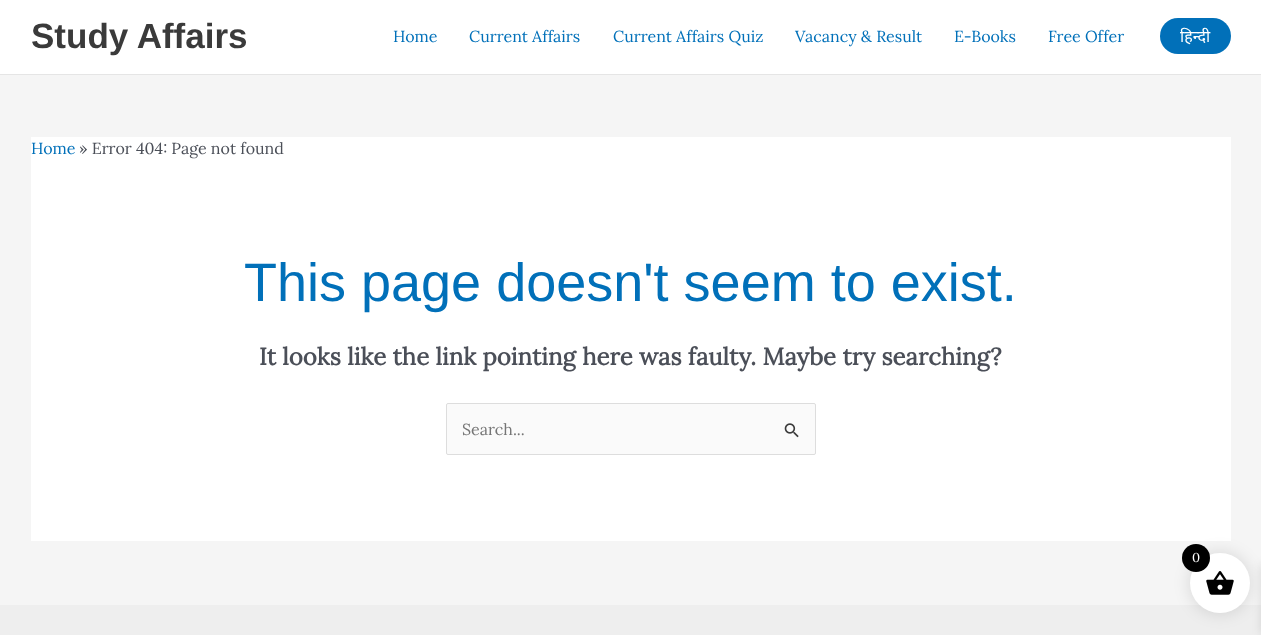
<?xml version="1.0" encoding="UTF-8"?>
<svg xmlns="http://www.w3.org/2000/svg" xmlns:xlink="http://www.w3.org/1999/xlink" width="1261" height="635">
  <rect width="100%" height="100%" fill="#f5f5f5" />
  <rect width="1261" height="74" fill="#ffffff" />
  <rect y="74" width="1261" height="1" fill="#e5e5e5" />
  <rect x="1160" y="18" width="71" height="36" rx="18" fill="#0170b9" />
  <rect x="31" y="137" width="1200" height="404" fill="#ffffff" />
  <rect x="446.5" y="403.5" width="369" height="51" rx="1.5" fill="#fafafa" stroke="#dddddd" />
  <image x="784" y="423" width="15" height="15" xlink:href="image1.png" />
  <rect y="605" width="1261" height="30" fill="#eeeeee" />
  <rect x="1188" y="551" width="64" height="64" rx="32" fill="#000000" fill-opacity="0.1" filter="blur(7.5px)" />
  <rect x="1261" y="564" width="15" height="70" fill="#000000" fill-opacity="0.1" filter="blur(5px)" />
  <circle cx="1220" cy="583" r="30" fill="#ffffff" />
  <image x="1206" y="571" width="28" height="24" xlink:href="image2.png" />
  <circle cx="1196" cy="558" r="14" fill="#000000" />
  <text x="31" y="48" style="font-family: Liberation Sans; font-size: 35px; font-weight: bold; fill: #3a3a3a">Study Affairs</text>
  <text x="393" y="42" style="font-family: Lora; font-size: 16px; fill: #0170b9">Home</text>
  <text x="469" y="42" style="font-family: Lora; font-size: 16px; fill: #0170b9">Current Affairs</text>
  <text x="613" y="42" style="font-family: Lora; font-size: 16px; fill: #0170b9">Current Affairs Quiz</text>
  <text x="795" y="42" style="font-family: Lora; font-size: 16px; fill: #0170b9">Vacancy &amp; Result</text>
  <text x="954" y="42" style="font-family: Lora; font-size: 16px; fill: #0170b9">E-Books</text>
  <text x="1048" y="42" style="font-family: Lora; font-size: 16px; fill: #0170b9">Free Offer</text>
  <text x="1180" y="42" style="font-family: Noto Sans; font-size: 16px; fill: #ffffff">हिन्दी</text>
  <text x="31" y="154" style="font-family: Lora; font-size: 16px; fill: #0170b9">Home</text>
  <text x="79" y="154" style="font-family: Lora; font-size: 16px; fill: #4b4f58">» Error 404: Page not found</text>
  <text x="244" y="301" style="font-family: Liberation Sans; font-size: 54px; fill: #0170b9">This page doesn't seem to exist.</text>
  <text x="259" y="365" style="font-family: Lora; font-size: 24px; font-weight: bold; fill: #4b4f58">It looks like the link pointing here was faulty. Maybe try searching?</text>
  <text x="462" y="435" style="font-family: Lora; font-size: 16px; fill: #757575">Search...</text>
  <text x="1192" y="562" style="font-family: Lora; font-size: 13px; fill: #ffffff">0</text>
</svg>
